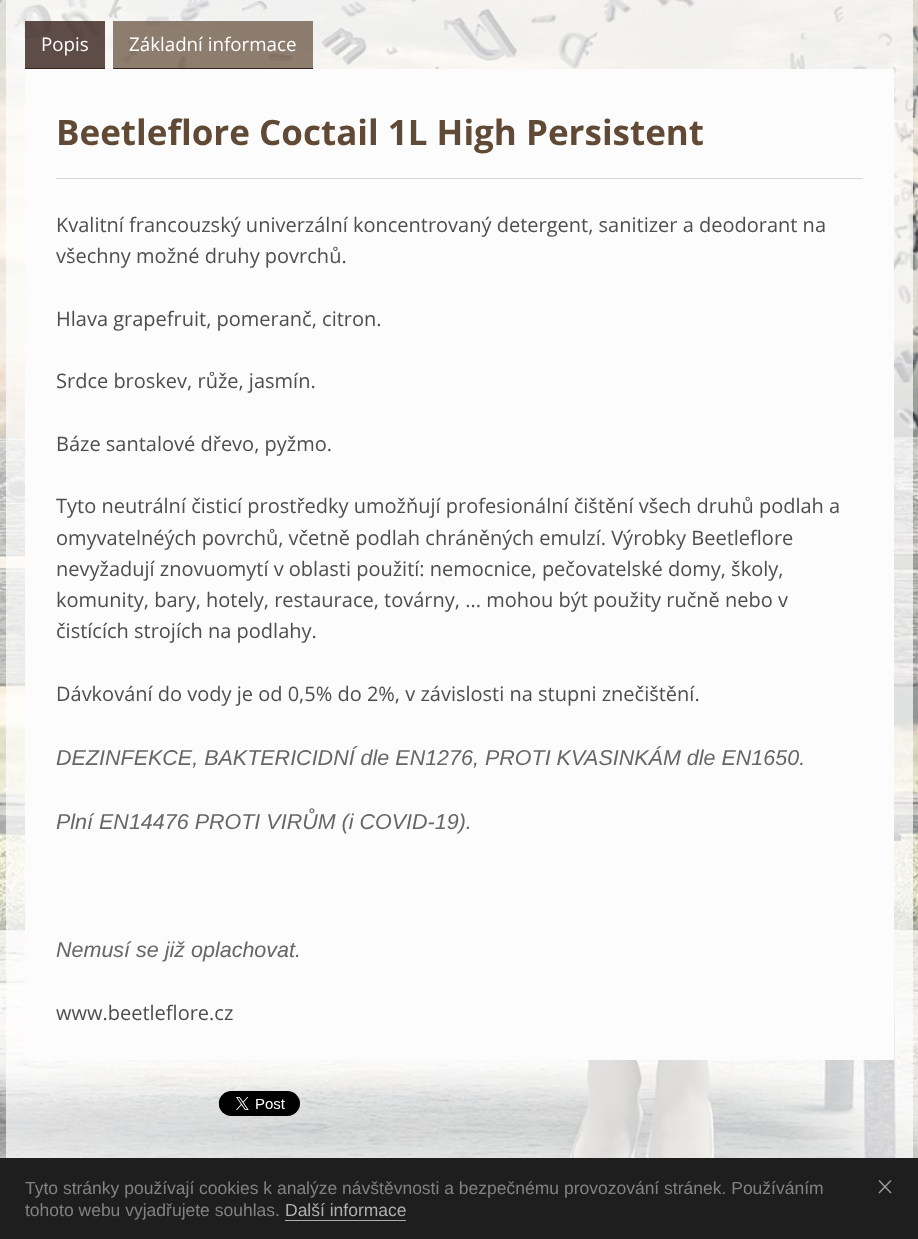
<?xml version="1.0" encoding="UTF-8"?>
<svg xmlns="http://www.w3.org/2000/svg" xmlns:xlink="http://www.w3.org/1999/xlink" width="918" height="1239">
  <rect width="100%" height="100%" fill="#ffffff" />
  <image x="0" y="0" width="918" height="1158" xlink:href="image1.png" />
  <rect x="25" y="21" width="80" height="47" fill="#37221b" fill-opacity="0.8" />
  <rect x="25" y="68" width="80" height="1" fill="#37221b" />
  <rect x="113" y="21" width="200" height="47" fill="#604a36" fill-opacity="0.7" />
  <rect x="113" y="68" width="200" height="1" fill="#37221b" />
  <rect x="25" y="69" width="869" height="991" fill="#fcfcfc" />
  <rect x="56" y="178" width="807" height="1" fill="#d7d7d7" />
  <image x="218" y="1091" width="82" height="25" xlink:href="image2.png" />
  <rect x="6" y="1151" width="907" height="7" fill="#ffffff" fill-opacity="0.7" />
  <rect y="1158" width="918" height="81" fill="#1e1e1e" />
  <rect x="285" y="1220" width="121" height="1" fill="#afafaf" />
  <path d="M 879.5 1180 l 12 12.5 l -1 1 l -12 -12.5 z" fill="#9e9e9e" />
  <path d="M 878.5 1192.5 l 12 -12.5 l 1 1 l -12 12.5 z" fill="#9e9e9e" />
  <text x="41" y="51" style="font-family: Open Sans; font-size: 18.75px; fill: #ffffff">Popis</text>
  <text x="129" y="51" style="font-family: Open Sans; font-size: 18.75px; fill: #ffffff">Základní informace</text>
  <text x="56" y="145" style="font-family: Open Sans; font-size: 35px; font-weight: bold; fill: #604a36">Beetleflore Coctail 1L High Persistent</text>
  <text x="56" y="232" style="font-family: Open Sans; font-size: 20px; fill: #4e4e4e">Kvalitní francouzský univerzální koncentrovaný detergent, sanitizer a deodorant na</text>
  <text x="56" y="263" style="font-family: Open Sans; font-size: 20px; fill: #4e4e4e">všechny možné druhy povrchů.</text>
  <text x="56" y="326" style="font-family: Open Sans; font-size: 20px; fill: #4e4e4e">Hlava grapefruit, pomeranč, citron.</text>
  <text x="56" y="388" style="font-family: Open Sans; font-size: 20px; fill: #4e4e4e">Srdce broskev, růže, jasmín.</text>
  <text x="56" y="451" style="font-family: Open Sans; font-size: 20px; fill: #4e4e4e">Báze santalové dřevo, pyžmo.</text>
  <text x="56" y="513" style="font-family: Open Sans; font-size: 20px; fill: #4e4e4e">Tyto neutrální čisticí prostředky umožňují profesionální čištění všech druhů podlah a</text>
  <text x="56" y="545" style="font-family: Open Sans; font-size: 20px; fill: #4e4e4e">omyvatelnéých povrchů, včetně podlah chráněných emulzí. Výrobky Beetleflore</text>
  <text x="56" y="576" style="font-family: Open Sans; font-size: 20px; fill: #4e4e4e">nevyžadují znovuomytí v oblasti použití: nemocnice, pečovatelské domy, školy,</text>
  <text x="56" y="607" style="font-family: Open Sans; font-size: 20px; fill: #4e4e4e">komunity, bary, hotely, restaurace, továrny, ... mohou být použity ručně nebo v</text>
  <text x="56" y="638" style="font-family: Open Sans; font-size: 20px; fill: #4e4e4e">čistících strojích na podlahy.</text>
  <text x="56" y="701" style="font-family: Open Sans; font-size: 20px; fill: #4e4e4e">Dávkování do vody je od 0,5% do 2%, v závislosti na stupni znečištění.</text>
  <text x="56" y="765" style="font-family: Liberation Sans; font-size: 21.5px; font-style: italic; fill: #666666">DEZINFEKCE, BAKTERICIDNÍ dle EN1276, PROTI KVASINKÁM dle EN1650.</text>
  <text x="56" y="829" style="font-family: Liberation Sans; font-size: 21.5px; font-style: italic; fill: #666666">Plní EN14476 PROTI VIRŮM (i COVID-19).</text>
  <text x="56" y="957" style="font-family: Liberation Sans; font-size: 21.5px; font-style: italic; fill: #666666">Nemusí se již oplachovat.</text>
  <text x="56" y="1020" style="font-family: Open Sans; font-size: 20px; fill: #4e4e4e">www.beetleflore.cz</text>
  <text x="25" y="1194" style="font-family: Liberation Sans; font-size: 17.5px; fill: #828282">Tyto stránky používají cookies k analýze návštěvnosti a bezpečnému provozování stránek. Používáním</text>
  <text x="25" y="1216" style="font-family: Liberation Sans; font-size: 17.5px; fill: #828282">tohoto webu vyjadřujete souhlas.</text>
  <text x="285" y="1216" style="font-family: Liberation Sans; font-size: 17.5px; fill: #afafaf">Další informace</text>
</svg>
